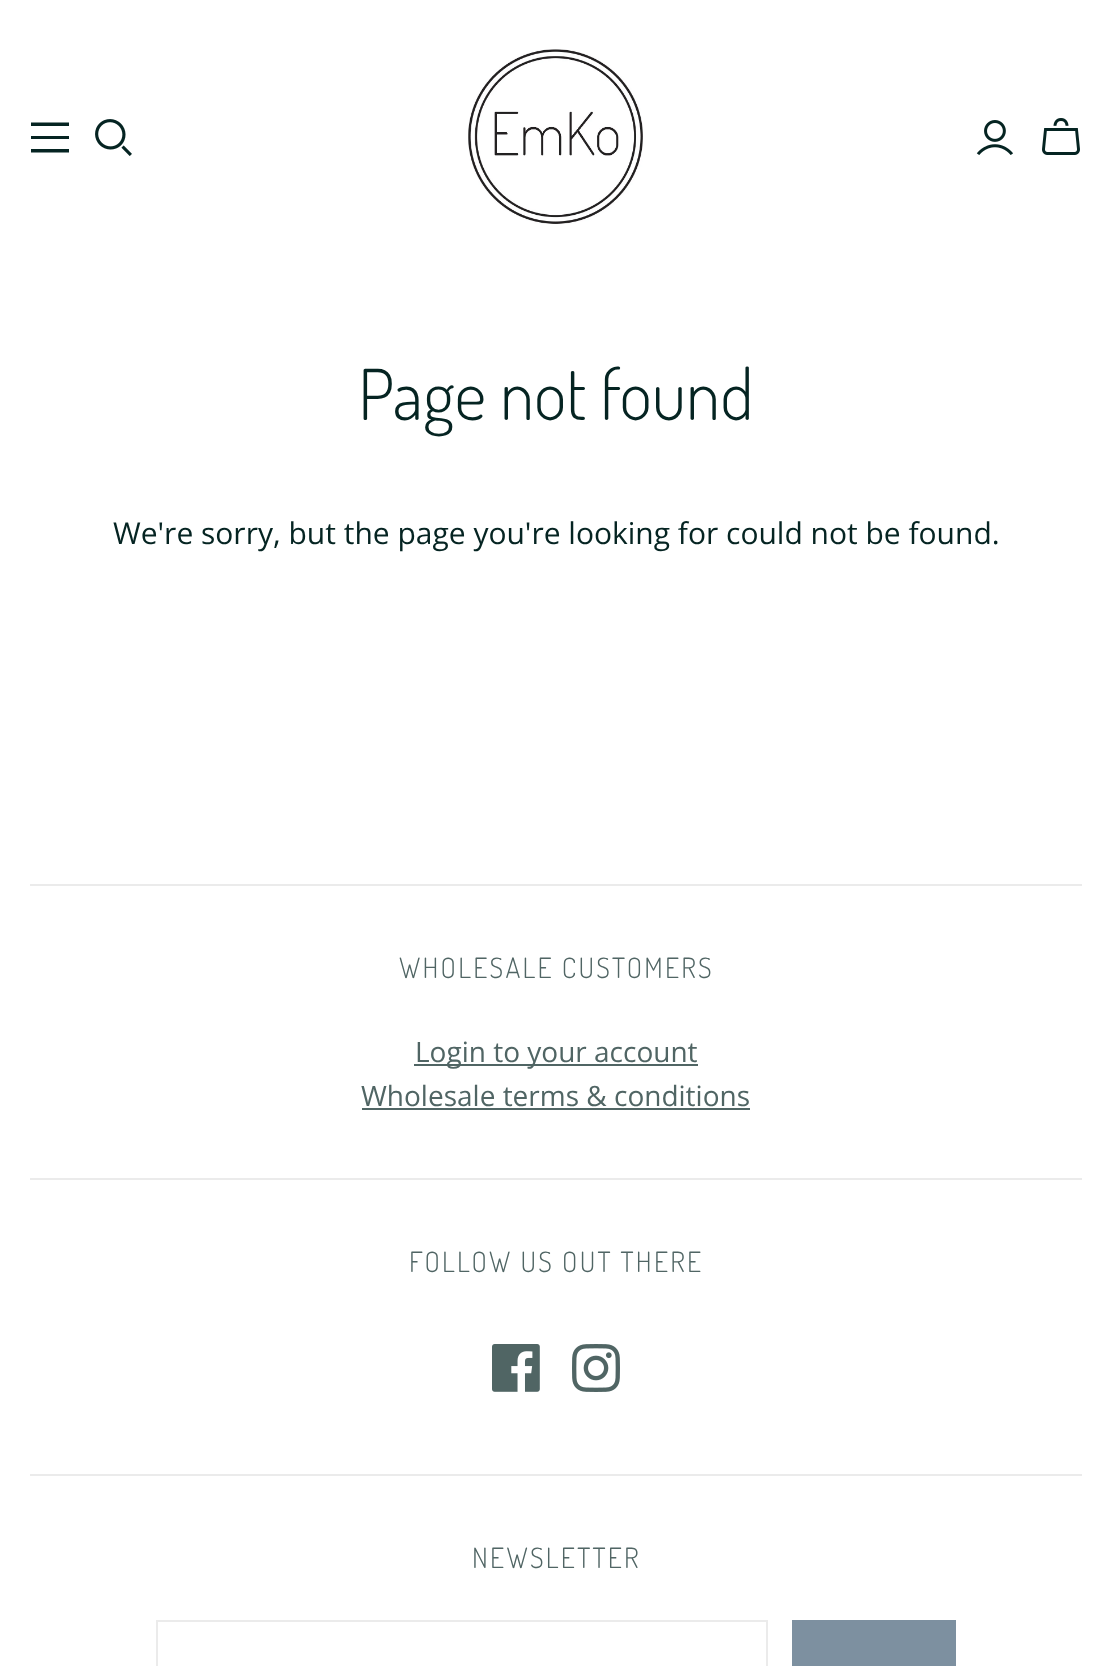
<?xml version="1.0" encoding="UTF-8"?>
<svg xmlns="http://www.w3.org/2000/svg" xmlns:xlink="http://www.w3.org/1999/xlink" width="1112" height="1666">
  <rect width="100%" height="100%" fill="#ffffff" />
  <image x="468" y="49" width="175" height="175" xlink:href="image1.png" />
  <path d="M 69 126 h -38 v -3.5 h 38 z m 0 13 h -38 v -3 h 38 z m -38 13.5 h 38 v -3.5 h -38 z" fill="#052422" fill-rule="evenodd" />
  <image x="95" y="119" width="37" height="37" xlink:href="image2.png" />
  <image x="976" y="120" width="37" height="35" xlink:href="image3.png" />
  <image x="1042" y="118" width="38" height="37" xlink:href="image4.png" />
  <rect x="30" y="884" width="1052" height="2" fill="#ebebeb" />
  <rect x="414" y="1064" width="284" height="2" fill="#506564" />
  <rect x="362" y="1108" width="388" height="2" fill="#506564" />
  <rect x="30" y="1178" width="1052" height="2" fill="#ebebeb" />
  <image x="492" y="1344" width="48" height="48" xlink:href="image5.png" />
  <image x="572" y="1344" width="48" height="48" xlink:href="image6.png" />
  <rect x="30" y="1474" width="1052" height="2" fill="#ebebeb" />
  <rect x="157" y="1621" width="610" height="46" fill="none" stroke="#ebebeb" stroke-width="2" />
  <rect x="792" y="1620" width="164" height="46" fill="#7d90a0" />
  <text x="358" y="420" style="font-family: Dosis; font-size: 70px; font-weight: 300; fill: #052422">Page not found</text>
  <text x="113" y="544" style="font-family: Open Sans; font-size: 30px; fill: #052422">We're sorry, but the page you're looking for could not be found.</text>
  <text x="399" y="978" style="font-family: Dosis; font-size: 28px; font-weight: 300; letter-spacing: 2.25px; fill: #506564">WHOLESALE CUSTOMERS</text>
  <text x="415" y="1062" style="font-family: Open Sans; font-size: 28px; fill: #506564">Login to your account</text>
  <text x="361" y="1106" style="font-family: Open Sans; font-size: 28px; fill: #506564">Wholesale terms &amp; conditions</text>
  <text x="409" y="1272" style="font-family: Dosis; font-size: 28px; font-weight: 300; letter-spacing: 2.25px; fill: #506564">FOLLOW US OUT THERE</text>
  <text x="472" y="1568" style="font-family: Dosis; font-size: 28px; font-weight: 300; letter-spacing: 2.25px; fill: #506564">NEWSLETTER</text>
</svg>
